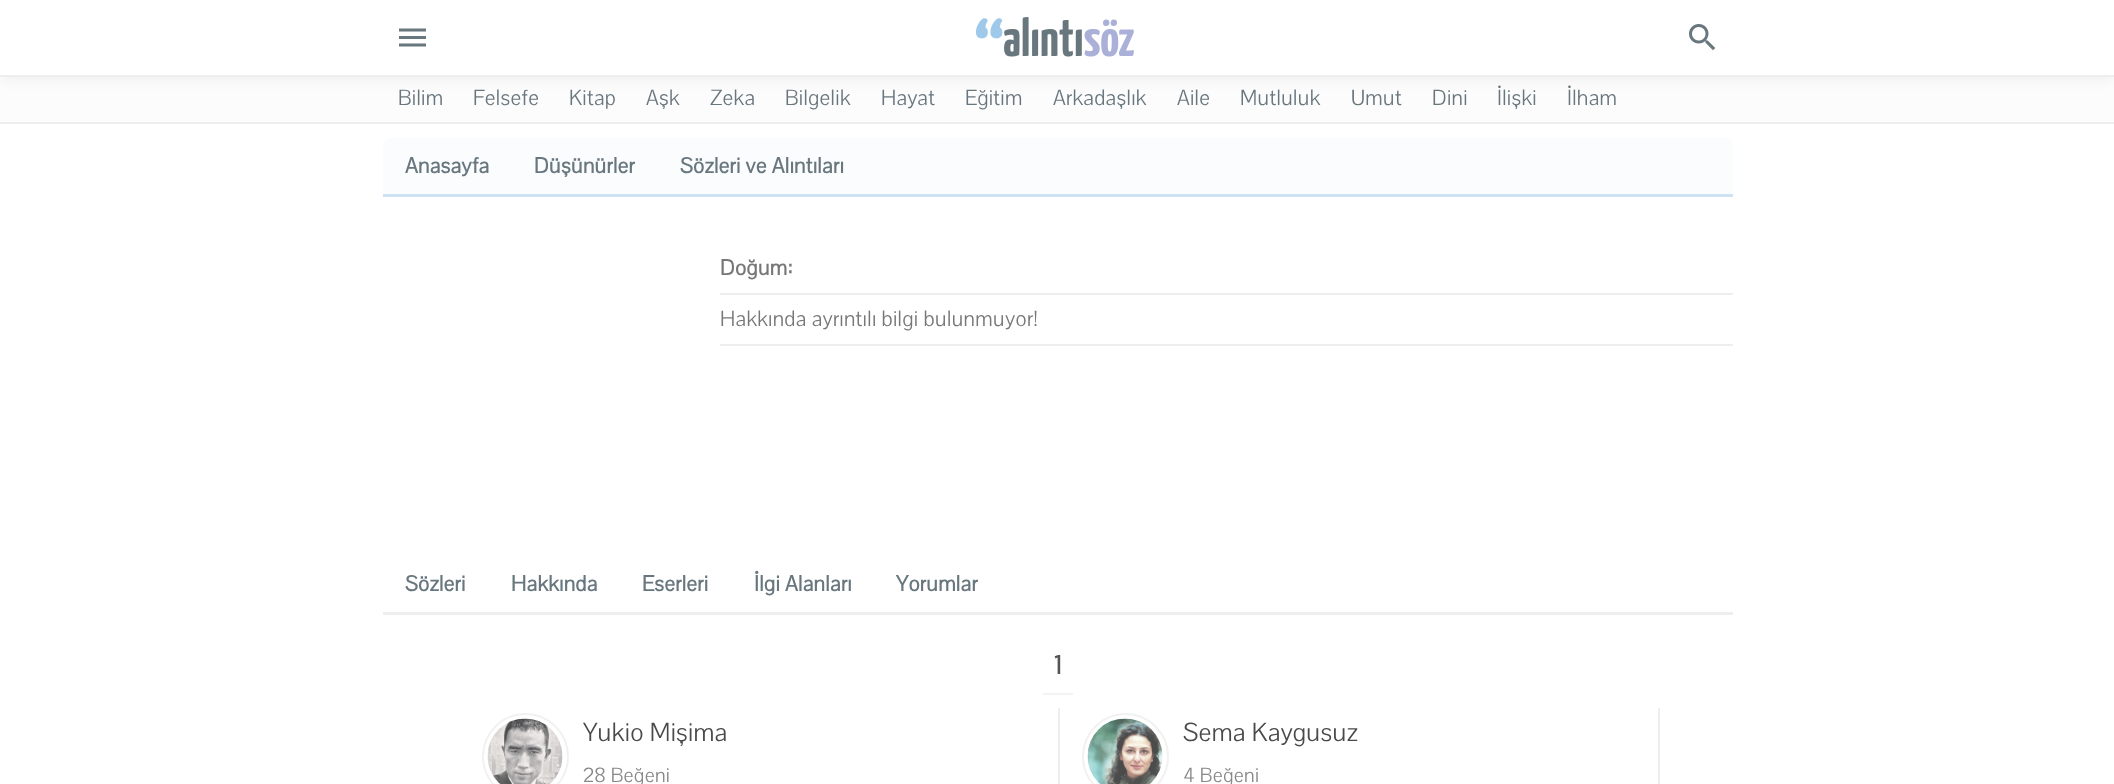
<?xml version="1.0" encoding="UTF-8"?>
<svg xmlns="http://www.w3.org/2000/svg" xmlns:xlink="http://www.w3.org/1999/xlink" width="2114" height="784">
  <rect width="100%" height="100%" fill="#ffffff" />
  <rect y="77" width="2114" height="45" fill="#fcfcfc" />
  <rect width="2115" height="77" fill="#000000" fill-opacity="0.07" filter="blur(7.5px)" />
  <rect width="2114" height="75" fill="#ffffff" />
  <rect y="75" width="2114" height="2" fill="#eeeeee" />
  <image x="399" y="28" width="27" height="19" xlink:href="image1.png" />
  <image x="975" y="17" width="159" height="40" xlink:href="image2.png" />
  <image x="1689" y="24" width="27" height="27" xlink:href="image3.png" />
  <rect y="122" width="2114" height="2" fill="#eeeeee" />
  <path d="M 391 138 h 1334 c 4.5 0 8 3.5 8 8 v 51 h -1350 v -51 c 0 -4.5 3.5 -8 8 -8 z" fill="#fafcfe" />
  <rect x="383" y="194" width="1350" height="3" fill="#cde3f5" />
  <rect x="720" y="293" width="1013" height="2" fill="#eeeeee" />
  <rect x="720" y="344" width="1013" height="2" fill="#eeeeee" />
  <rect x="383" y="612" width="1350" height="3" fill="#eeeeee" />
  <rect x="1043" y="693" width="30" height="2" fill="#f3f3f3" />
  <rect x="1058" y="708" width="2" height="76" fill="#eeeeee" />
  <circle cx="525.5" cy="756.5" r="42.5" fill="none" stroke="#f1f1f1" stroke-width="2" />
  <image x="487" y="718" width="76" height="66" xlink:href="image4.png" />
  <rect x="1658" y="708" width="2" height="76" fill="#eeeeee" />
  <circle cx="1125.5" cy="756.5" r="42.5" fill="none" stroke="#f1f1f1" stroke-width="2" />
  <image x="1087" y="718" width="76" height="66" xlink:href="image5.png" />
  <text x="398" y="105" style="font-family: Pavanam; font-size: 22.5px; letter-spacing: 0.3px; fill: #68767e">Bilim</text>
  <text x="473" y="105" style="font-family: Pavanam; font-size: 22.5px; letter-spacing: 0.3px; fill: #68767e">Felsefe</text>
  <text x="569" y="105" style="font-family: Pavanam; font-size: 22.5px; letter-spacing: 0.3px; fill: #68767e">Kitap</text>
  <text x="646" y="105" style="font-family: Pavanam; font-size: 22.5px; letter-spacing: 0.3px; fill: #68767e">Aşk</text>
  <text x="710" y="105" style="font-family: Pavanam; font-size: 22.5px; letter-spacing: 0.3px; fill: #68767e">Zeka</text>
  <text x="785" y="105" style="font-family: Pavanam; font-size: 22.5px; letter-spacing: 0.3px; fill: #68767e">Bilgelik</text>
  <text x="881" y="105" style="font-family: Pavanam; font-size: 22.5px; letter-spacing: 0.3px; fill: #68767e">Hayat</text>
  <text x="965" y="105" style="font-family: Pavanam; font-size: 22.5px; letter-spacing: 0.3px; fill: #68767e">Eğitim</text>
  <text x="1053" y="105" style="font-family: Pavanam; font-size: 22.5px; letter-spacing: 0.3px; fill: #68767e">Arkadaşlık</text>
  <text x="1177" y="105" style="font-family: Pavanam; font-size: 22.5px; letter-spacing: 0.3px; fill: #68767e">Aile</text>
  <text x="1240" y="105" style="font-family: Pavanam; font-size: 22.5px; letter-spacing: 0.3px; fill: #68767e">Mutluluk</text>
  <text x="1351" y="105" style="font-family: Pavanam; font-size: 22.5px; letter-spacing: 0.3px; fill: #68767e">Umut</text>
  <text x="1432" y="105" style="font-family: Pavanam; font-size: 22.5px; letter-spacing: 0.3px; fill: #68767e">Dini</text>
  <text x="1497" y="105" style="font-family: Pavanam; font-size: 22.5px; letter-spacing: 0.3px; fill: #68767e">İlişki</text>
  <text x="1567" y="105" style="font-family: Pavanam; font-size: 22.5px; letter-spacing: 0.3px; fill: #68767e">İlham</text>
  <text x="405" y="173" style="font-family: Pavanam; font-size: 22.5px; font-weight: bold; letter-spacing: 0.3px; fill: #68767e">Anasayfa</text>
  <text x="534" y="173" style="font-family: Pavanam; font-size: 22.5px; font-weight: bold; letter-spacing: 0.3px; fill: #68767e">Düşünürler</text>
  <text x="680" y="173" style="font-family: Pavanam; font-size: 22.5px; font-weight: bold; letter-spacing: 0.3px; fill: #68767e">Sözleri ve Alıntıları</text>
  <text x="720" y="275" style="font-family: Pavanam; font-size: 22.5px; font-weight: bold; letter-spacing: 0.3px; fill: #777777">Doğum:</text>
  <text x="720" y="326" style="font-family: Pavanam; font-size: 22.5px; letter-spacing: 0.3px; fill: #777777">Hakkında ayrıntılı bilgi bulunmuyor!</text>
  <text x="405" y="591" style="font-family: Pavanam; font-size: 22.5px; font-weight: bold; letter-spacing: 0.3px; fill: #68767e">Sözleri</text>
  <text x="511" y="591" style="font-family: Pavanam; font-size: 22.5px; font-weight: bold; letter-spacing: 0.3px; fill: #68767e">Hakkında</text>
  <text x="642" y="591" style="font-family: Pavanam; font-size: 22.5px; font-weight: bold; letter-spacing: 0.3px; fill: #68767e">Eserleri</text>
  <text x="754" y="591" style="font-family: Pavanam; font-size: 22.5px; font-weight: bold; letter-spacing: 0.3px; fill: #68767e">İlgi Alanları</text>
  <text x="896" y="591" style="font-family: Pavanam; font-size: 22.5px; font-weight: bold; letter-spacing: 0.3px; fill: #68767e">Yorumlar</text>
  <text x="1054" y="674" style="font-family: Pavanam; font-size: 27px; font-weight: bold; letter-spacing: 0.3px; fill: #555555">1</text>
  <text x="583" y="741" style="font-family: Pavanam; font-size: 27px; letter-spacing: 0.3px; fill: #4a4a4a">Yukio Mişima</text>
  <text x="583" y="782" style="font-family: Pavanam; font-size: 21px; letter-spacing: 0.3px; fill: #888888">28 Beğeni</text>
  <text x="1183" y="741" style="font-family: Pavanam; font-size: 27px; letter-spacing: 0.3px; fill: #4a4a4a">Sema Kaygusuz</text>
  <text x="1183" y="782" style="font-family: Pavanam; font-size: 21px; letter-spacing: 0.3px; fill: #888888">4 Beğeni</text>
</svg>
